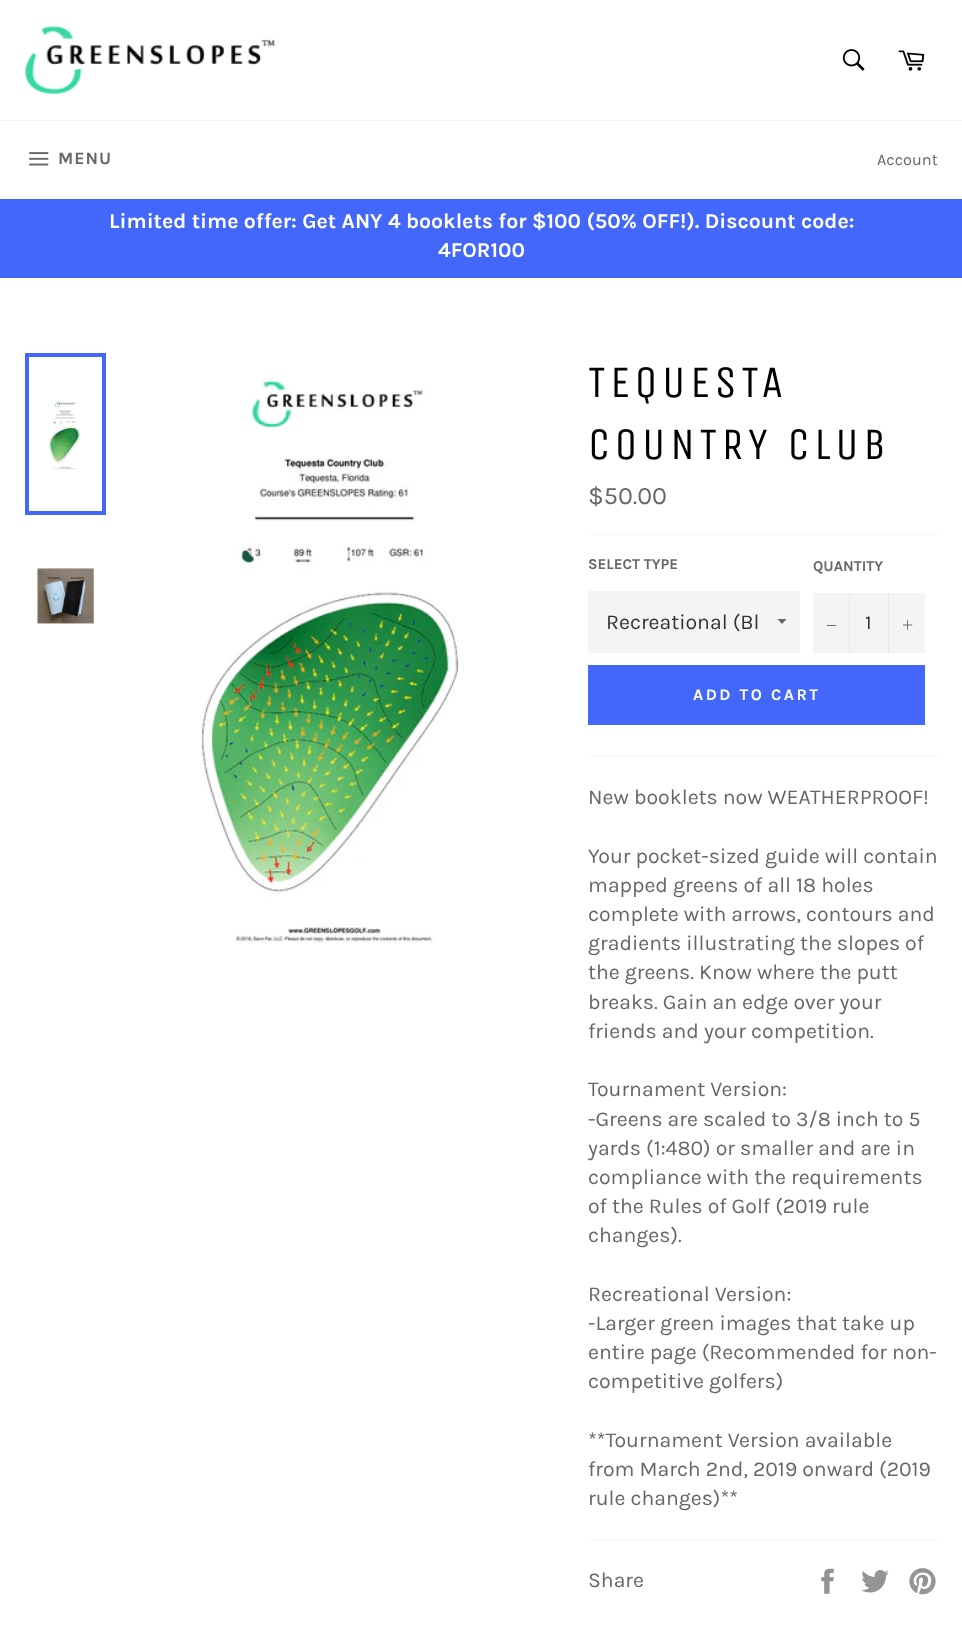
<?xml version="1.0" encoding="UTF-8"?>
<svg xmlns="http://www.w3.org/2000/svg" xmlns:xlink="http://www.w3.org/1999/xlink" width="962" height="1634">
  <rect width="100%" height="100%" fill="#ffffff" />
  <image x="25" y="26" width="250" height="68" xlink:href="image1.png" />
  <image x="842" y="49" width="23" height="22" xlink:href="image2.png" />
  <image x="898" y="50" width="27" height="21" xlink:href="image3.png" />
  <rect y="120" width="962" height="1" fill="#f2f2f2" />
  <image x="29" y="152" width="20" height="14" xlink:href="image4.png" />
  <rect y="199" width="962" height="79" fill="#4367fb" />
  <image x="48" y="400" width="32" height="70" xlink:href="image5.png" />
  <rect x="27" y="355" width="77" height="158" fill="none" stroke="#4367fb" stroke-width="4" />
  <image x="37" y="568" width="57" height="56" xlink:href="image6.png" />
  <image x="200" y="375" width="259" height="569" xlink:href="image7.png" />
  <rect x="588" y="534" width="350" height="1" fill="#f7f7f7" />
  <rect x="588" y="591" width="212" height="62" fill="#f4f4f4" />
  <path d="M 777.5 619 l 4.5 5 l 4.5 -5 z" fill="#666666" />
  <rect x="813" y="593" width="112" height="60" fill="#f4f4f4" />
  <rect x="849" y="593" width="1" height="60" fill="#e7e7e7" />
  <rect x="827" y="625" width="9" height="1" fill="#666666" />
  <rect x="888" y="593" width="1" height="60" fill="#e7e7e7" />
  <image x="903" y="620" width="10" height="10" xlink:href="image8.png" />
  <rect x="588" y="665" width="337" height="60" fill="#4367fb" />
  <rect x="588" y="756" width="350" height="1" fill="#f7f7f7" />
  <rect x="588" y="1539" width="350" height="1" fill="#f7f7f7" />
  <image x="821" y="1568" width="13" height="26" xlink:href="image9.png" />
  <image x="861" y="1570" width="28" height="23" xlink:href="image10.png" />
  <image x="909" y="1568" width="27" height="27" xlink:href="image11.png" />
  <text x="58" y="164" style="font-family: Karla; font-size: 17.5px; font-weight: bold; letter-spacing: 1px; fill: #666666">MENU</text>
  <text x="877" y="165" style="font-family: Karla; font-size: 16.25px; fill: #666666">Account</text>
  <text x="109" y="228" style="font-family: Karla; font-size: 21.25px; font-weight: bold; fill: #ffffff">Limited time offer: Get ANY 4 booklets for $100 (50% OFF!). Discount code:</text>
  <text x="438" y="257" style="font-family: Karla; font-size: 21.25px; font-weight: bold; fill: #ffffff">4FOR100</text>
  <text x="588" y="397" style="font-family: Unica One; font-size: 45px; letter-spacing: 4.5px; fill: #000000">TEQUESTA</text>
  <text x="588" y="459" style="font-family: Unica One; font-size: 45px; letter-spacing: 4.5px; fill: #000000">COUNTRY CLUB</text>
  <text x="588" y="504" style="font-family: Karla; font-size: 25px; fill: #666666">$50.00</text>
  <text x="588" y="569" style="font-family: Karla; font-size: 15px; font-weight: bold; fill: #666666">SELECT TYPE</text>
  <text x="606" y="629" style="font-family: Karla; font-size: 21.25px; fill: #333333">Recreational (Bl</text>
  <text x="813" y="571" style="font-family: Karla; font-size: 15px; font-weight: bold; fill: #666666">QUANTITY</text>
  <text x="865" y="629" style="font-family: Karla; font-size: 20px; fill: #333333">1</text>
  <text x="693" y="700" style="font-family: Karla; font-size: 16.25px; font-weight: bold; letter-spacing: 2.5px; fill: #ffffff">ADD TO CART</text>
  <text x="588" y="804" style="font-family: Karla; font-size: 21.25px; fill: #666666">New booklets now WEATHERPROOF!</text>
  <text x="588" y="863" style="font-family: Karla; font-size: 21.25px; fill: #666666">Your pocket-sized guide will contain</text>
  <text x="588" y="892" style="font-family: Karla; font-size: 21.25px; fill: #666666">mapped greens of all 18 holes</text>
  <text x="588" y="921" style="font-family: Karla; font-size: 21.25px; fill: #666666">complete with arrows, contours and</text>
  <text x="588" y="950" style="font-family: Karla; font-size: 21.25px; fill: #666666">gradients illustrating the slopes of</text>
  <text x="588" y="979" style="font-family: Karla; font-size: 21.25px; fill: #666666">the greens. Know where the putt</text>
  <text x="588" y="1009" style="font-family: Karla; font-size: 21.25px; fill: #666666">breaks. Gain an edge over your</text>
  <text x="588" y="1038" style="font-family: Karla; font-size: 21.25px; fill: #666666">friends and your competition.</text>
  <text x="588" y="1096" style="font-family: Karla; font-size: 21.25px; fill: #666666">Tournament Version:</text>
  <text x="588" y="1126" style="font-family: Karla; font-size: 21.25px; fill: #666666">-Greens are scaled to 3/8 inch to 5</text>
  <text x="588" y="1155" style="font-family: Karla; font-size: 21.25px; fill: #666666">yards (1:480) or smaller and are in</text>
  <text x="588" y="1184" style="font-family: Karla; font-size: 21.25px; fill: #666666">compliance with the requirements</text>
  <text x="588" y="1213" style="font-family: Karla; font-size: 21.25px; fill: #666666">of the Rules of Golf (2019 rule</text>
  <text x="588" y="1242" style="font-family: Karla; font-size: 21.25px; fill: #666666">changes).</text>
  <text x="588" y="1301" style="font-family: Karla; font-size: 21.25px; fill: #666666">Recreational Version:</text>
  <text x="588" y="1330" style="font-family: Karla; font-size: 21.25px; fill: #666666">-Larger green images that take up</text>
  <text x="588" y="1359" style="font-family: Karla; font-size: 21.25px; fill: #666666">entire page (Recommended for non-</text>
  <text x="588" y="1388" style="font-family: Karla; font-size: 21.25px; fill: #666666">competitive golfers)</text>
  <text x="588" y="1447" style="font-family: Karla; font-size: 21.25px; fill: #666666">**Tournament Version available</text>
  <text x="588" y="1476" style="font-family: Karla; font-size: 21.25px; fill: #666666">from March 2nd, 2019 onward (2019</text>
  <text x="588" y="1505" style="font-family: Karla; font-size: 21.25px; fill: #666666">rule changes)**</text>
  <text x="588" y="1587" style="font-family: Karla; font-size: 21.25px; fill: #666666">Share</text>
</svg>
